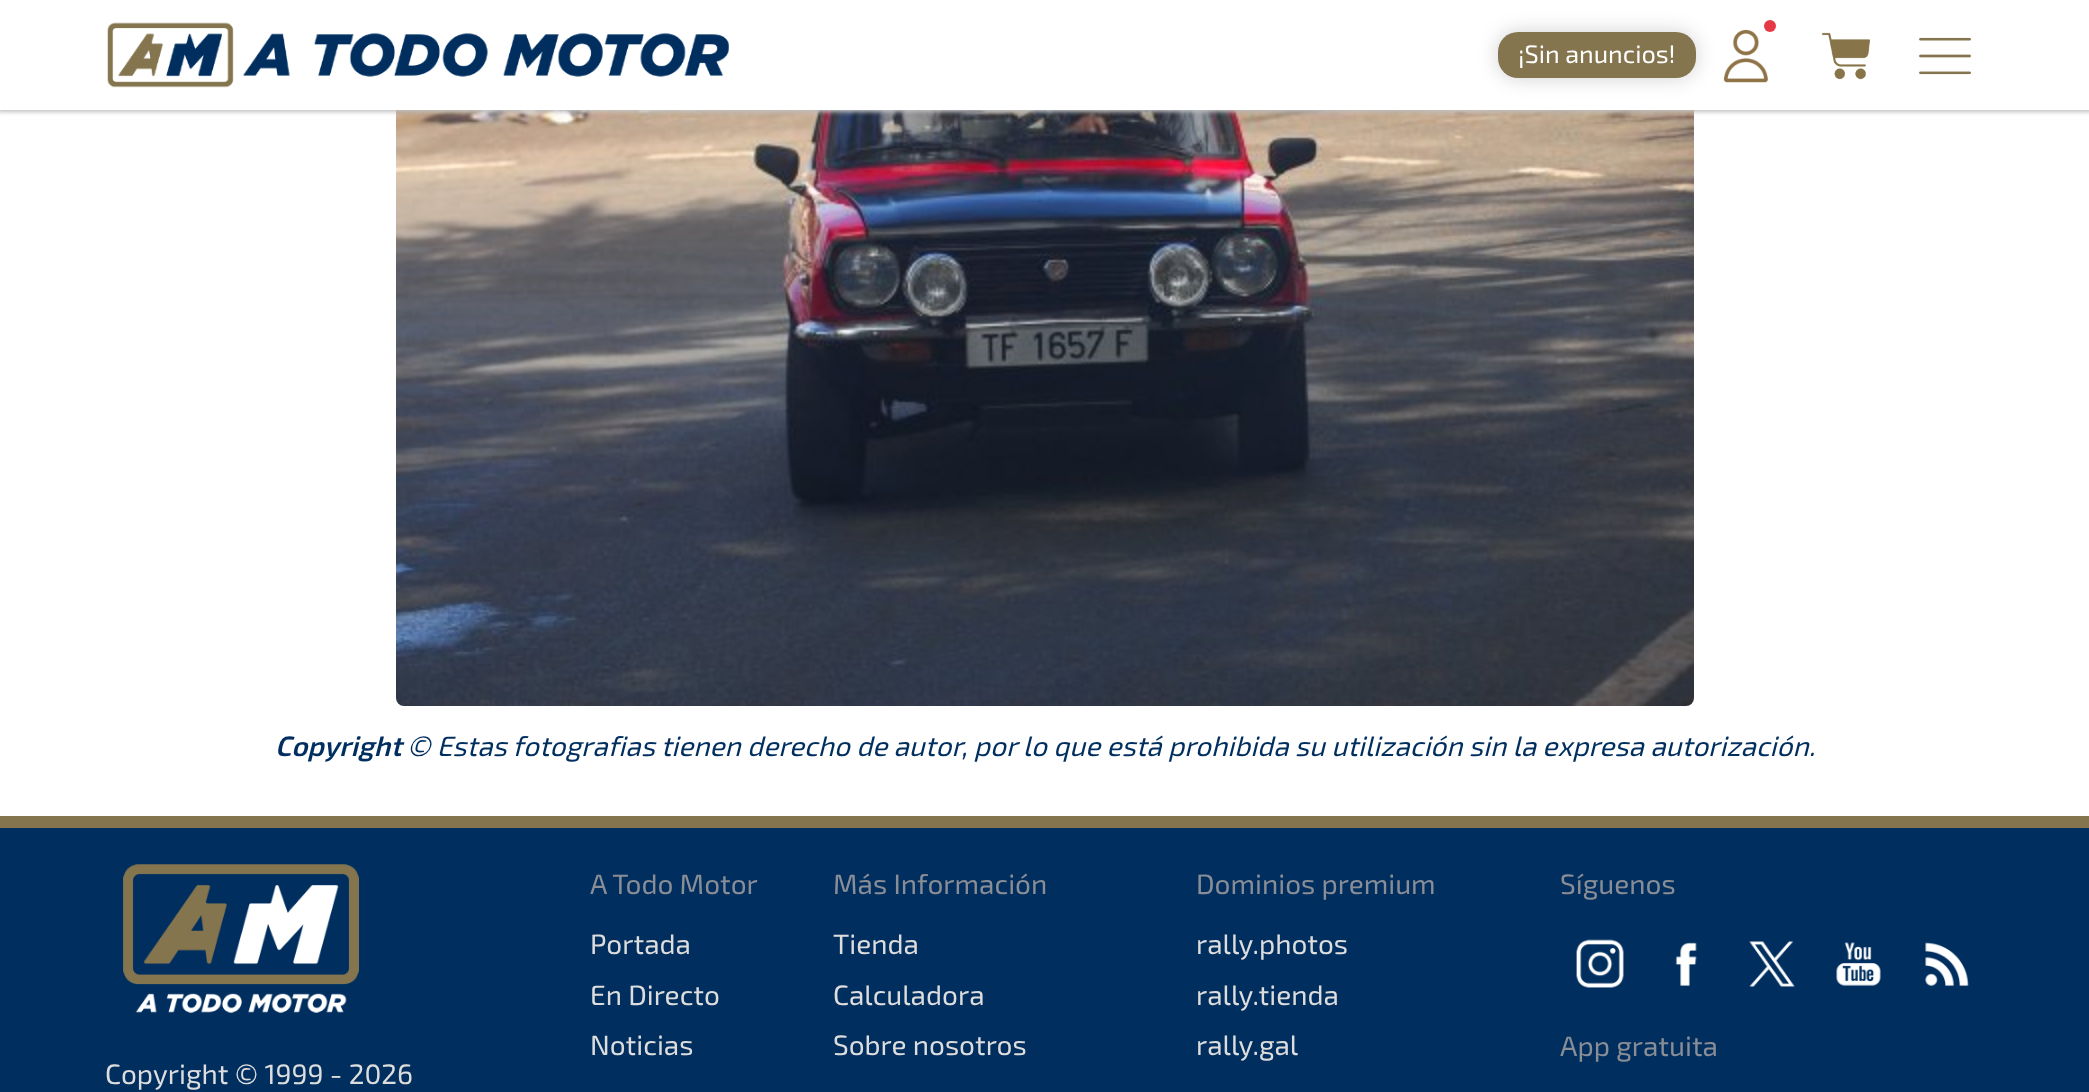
<?xml version="1.0" encoding="UTF-8"?>
<svg xmlns="http://www.w3.org/2000/svg" xmlns:xlink="http://www.w3.org/1999/xlink" width="2089" height="1092">
  <rect width="100%" height="100%" fill="#ffffff" />
  <image x="396" y="110" width="1298" height="596" xlink:href="image5.png" />
  <rect x="-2" y="-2" width="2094" height="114" fill="#c0c0c0" filter="blur(2px)" />
  <rect width="2089" height="110" fill="#ffffff" />
  <image x="107" y="22" width="622" height="66" xlink:href="image1.png" />
  <rect x="1498" y="32" width="198" height="46" rx="20" fill="#000000" fill-opacity="0.18" filter="blur(10px)" />
  <rect x="1498" y="32" width="198" height="46" rx="20" fill="#84754e" />
  <image x="1723" y="29" width="45" height="54" xlink:href="image2.png" />
  <circle cx="1770" cy="26" r="6" fill="#e63946" />
  <image x="1822" y="32" width="48" height="48" xlink:href="image3.png" />
  <image x="1918" y="37" width="54" height="38" xlink:href="image4.png" />
  <rect y="828" width="2089" height="264" fill="#002f5f" />
  <rect y="816" width="2089" height="12" fill="#84754e" />
  <image x="1576" y="939" width="48" height="49" xlink:href="image6.png" />
  <image x="1675" y="942" width="22" height="44" xlink:href="image7.png" />
  <image x="1749" y="941" width="46" height="46" xlink:href="image8.png" />
  <image x="1836" y="942" width="45" height="44" xlink:href="image9.png" />
  <image x="1925" y="942" width="44" height="44" xlink:href="image10.png" />
  <image x="123" y="864" width="236" height="149" xlink:href="image11.png" />
  <text x="1518" y="63" style="font-family: 'Exo 2'; font-size: 25.25px; fill: #ffffff">¡Sin anuncios!</text>
  <text x="275" y="756" style="font-family: 'Exo 2'; font-size: 28px; font-weight: 600; font-style: italic; fill: #002f5f">Copyright</text>
  <text x="407" y="756" style="font-family: 'Exo 2'; font-size: 28px; font-style: italic; fill: #002f5f">© Estas fotografias tienen derecho de autor, por lo que está prohibida su utilización sin la expresa autorización.</text>
  <text x="590" y="894" style="font-family: 'Exo 2'; font-size: 28px; fill: #898d96">A Todo Motor</text>
  <text x="590" y="954" style="font-family: 'Exo 2'; font-size: 28px; fill: #dddddd">Portada</text>
  <text x="590" y="1005" style="font-family: 'Exo 2'; font-size: 28px; fill: #dddddd">En Directo</text>
  <text x="590" y="1055" style="font-family: 'Exo 2'; font-size: 28px; fill: #dddddd">Noticias</text>
  <text x="833" y="894" style="font-family: 'Exo 2'; font-size: 28px; fill: #898d96">Más Información</text>
  <text x="833" y="954" style="font-family: 'Exo 2'; font-size: 28px; fill: #dddddd">Tienda</text>
  <text x="833" y="1005" style="font-family: 'Exo 2'; font-size: 28px; fill: #dddddd">Calculadora</text>
  <text x="833" y="1055" style="font-family: 'Exo 2'; font-size: 28px; fill: #dddddd">Sobre nosotros</text>
  <text x="1196" y="894" style="font-family: 'Exo 2'; font-size: 28px; fill: #898d96">Dominios premium</text>
  <text x="1196" y="954" style="font-family: 'Exo 2'; font-size: 28px; fill: #dddddd">rally.photos</text>
  <text x="1196" y="1005" style="font-family: 'Exo 2'; font-size: 28px; fill: #dddddd">rally.tienda</text>
  <text x="1196" y="1055" style="font-family: 'Exo 2'; font-size: 28px; fill: #dddddd">rally.gal</text>
  <text x="1560" y="894" style="font-family: 'Exo 2'; font-size: 28px; fill: #898d96">Síguenos</text>
  <text x="1560" y="1056" style="font-family: 'Exo 2'; font-size: 28px; fill: #898d96">App gratuita</text>
  <text x="105" y="1084" style="font-family: 'Exo 2'; font-size: 28px; fill: #dddddd">Copyright © 1999 - 2026</text>
</svg>
